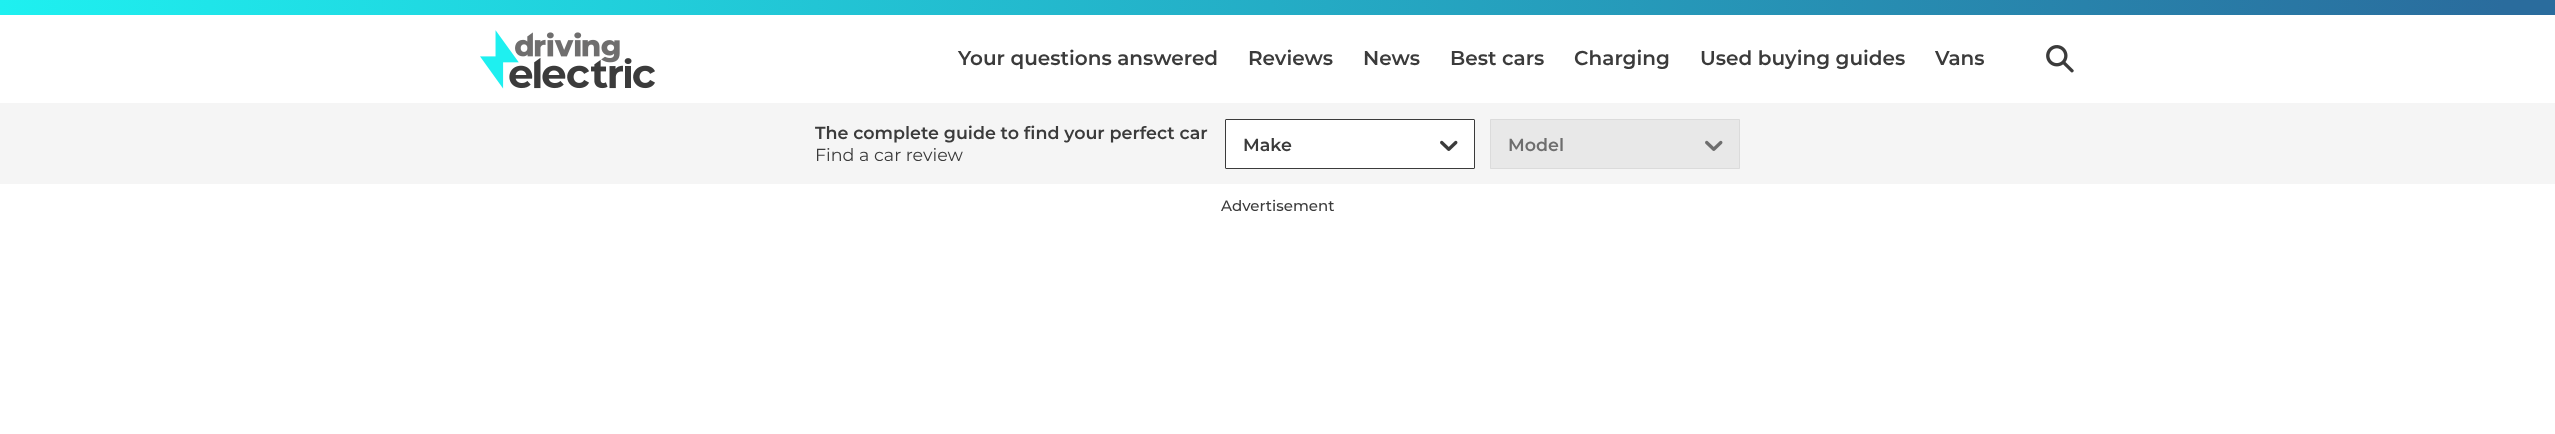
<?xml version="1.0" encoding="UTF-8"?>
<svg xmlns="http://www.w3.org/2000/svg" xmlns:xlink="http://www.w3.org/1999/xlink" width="2555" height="434">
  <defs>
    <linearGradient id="g1" gradientUnits="userSpaceOnUse" x1="0" y1="7.5" x2="2555" y2="7.5"><stop offset="0" stop-color="#1ef0f0" /><stop offset="0.98" stop-color="#2a6c9d" /></linearGradient>
  </defs>
  <rect width="100%" height="100%" fill="#ffffff" />
  <rect width="2555" height="15" fill="url(#g1)" />
  <image x="480" y="30" width="175" height="59" xlink:href="image1.png" />
  <image x="2046" y="45" width="28" height="28" xlink:href="image2.png" />
  <rect y="103" width="2555" height="81" fill="#f5f5f5" />
  <rect x="1225.5" y="119.5" width="249" height="49" rx="0.5" fill="#ffffff" stroke="#3b3b3b" />
  <image x="1440" y="140" width="18" height="11" xlink:href="image3.png" />
  <rect x="1490" y="119" width="250" height="50" rx="1" fill="#e8e8e8" />
  <rect x="1490.5" y="119.5" width="249" height="49" fill="none" stroke="#6e6e6e" stroke-opacity="0.1" />
  <image x="1705" y="140" width="18" height="11" xlink:href="image4.png" />
  <text x="958" y="65" style="font-family: Montserrat; font-size: 20px; font-weight: 100; fill: #3b3b3b">Your questions answered</text>
  <text x="1248" y="65" style="font-family: Montserrat; font-size: 20px; font-weight: 100; fill: #3b3b3b">Reviews</text>
  <text x="1363" y="65" style="font-family: Montserrat; font-size: 20px; font-weight: 100; fill: #3b3b3b">News</text>
  <text x="1450" y="65" style="font-family: Montserrat; font-size: 20px; font-weight: 100; fill: #3b3b3b">Best cars</text>
  <text x="1574" y="65" style="font-family: Montserrat; font-size: 20px; font-weight: 100; fill: #3b3b3b">Charging</text>
  <text x="1700" y="65" style="font-family: Montserrat; font-size: 20px; font-weight: 100; fill: #3b3b3b">Used buying guides</text>
  <text x="1935" y="65" style="font-family: Montserrat; font-size: 20px; font-weight: 100; fill: #3b3b3b">Vans</text>
  <text x="815" y="139" style="font-family: Montserrat; font-size: 17.5px; font-weight: 100; fill: #3b3b3b">The complete guide to find your perfect car</text>
  <text x="815" y="161" style="font-family: 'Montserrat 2'; font-size: 17.5px; font-weight: 100; fill: #3b3b3b">Find a car review</text>
  <text x="1243" y="151" style="font-family: Montserrat; font-size: 17.5px; font-weight: 100; fill: #3b3b3b">Make</text>
  <text x="1508" y="151" style="font-family: Montserrat; font-size: 17.5px; font-weight: 100; fill: #6e6e6e">Model</text>
  <text x="1221" y="211" style="font-family: 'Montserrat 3'; font-size: 15px; font-weight: 100; fill: #3b3b3b">Advertisement</text>
</svg>
